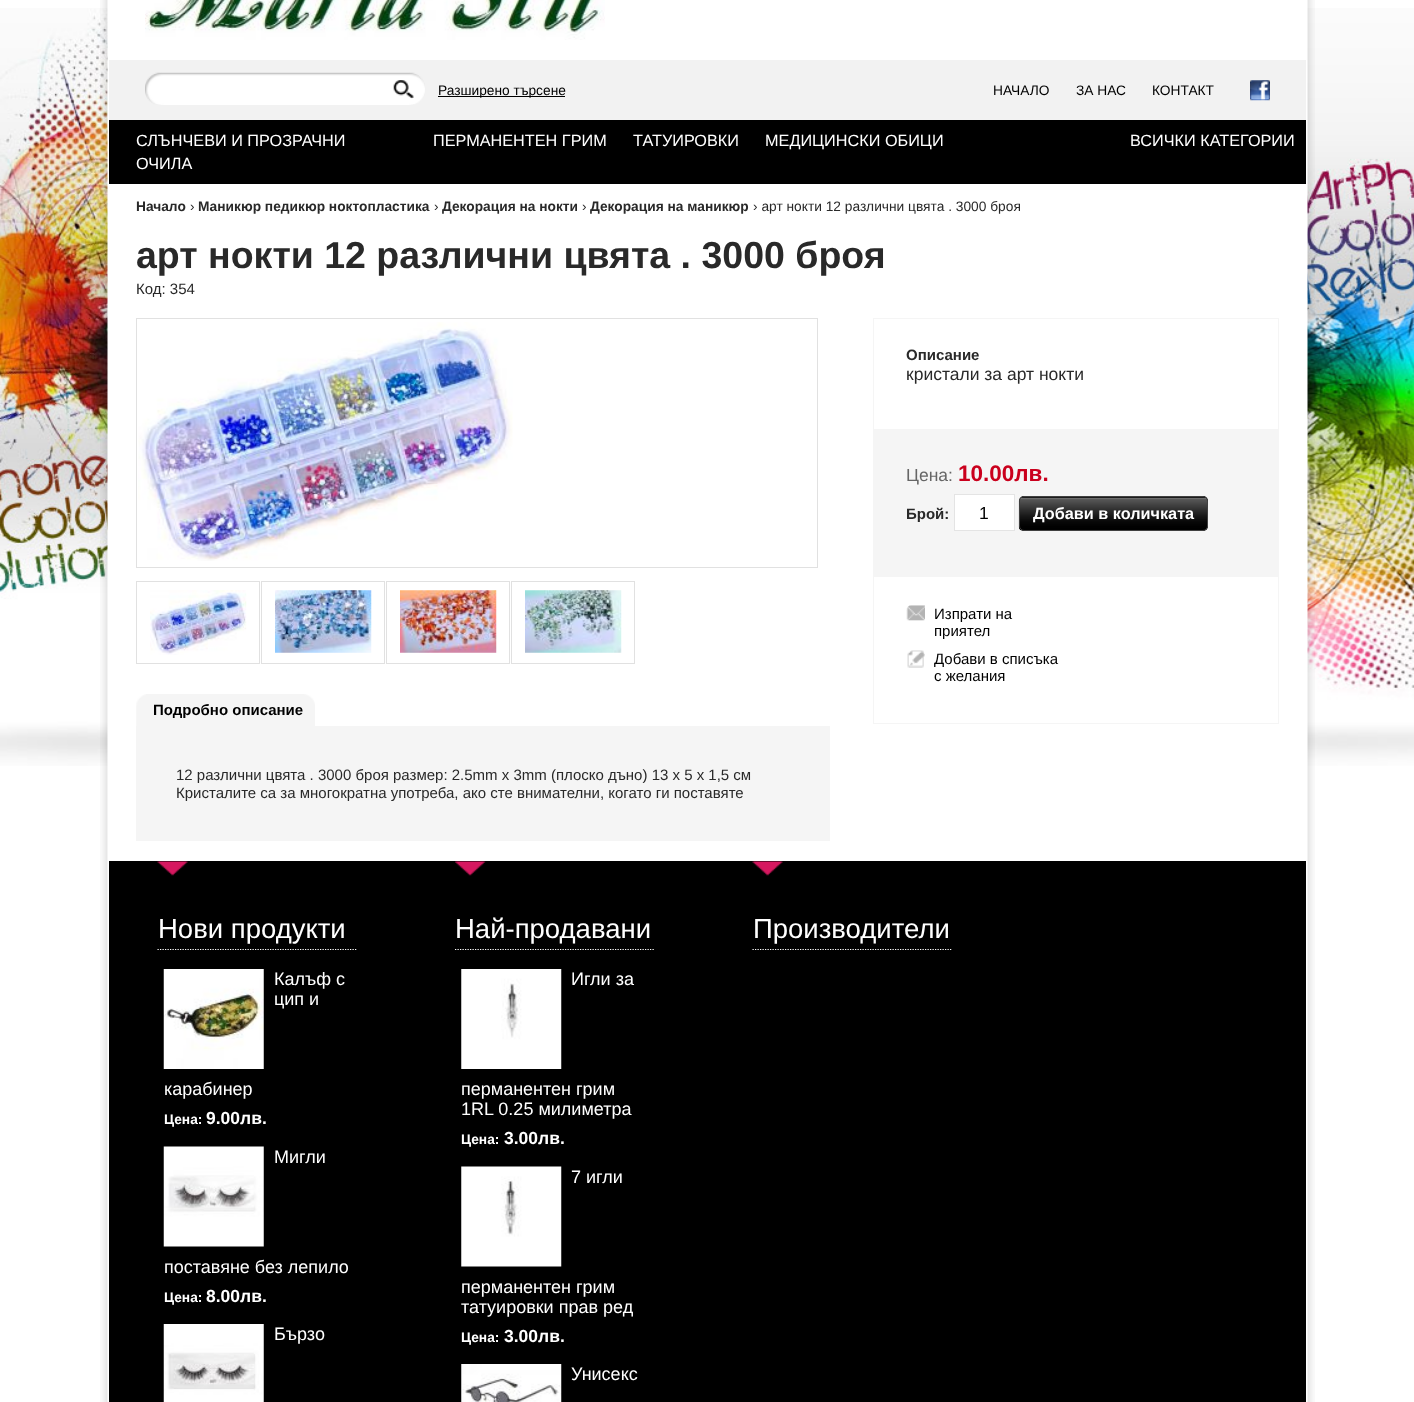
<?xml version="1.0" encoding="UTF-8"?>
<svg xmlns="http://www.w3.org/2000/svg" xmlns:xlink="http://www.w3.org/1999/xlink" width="1414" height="1402">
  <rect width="100%" height="100%" fill="#ffffff" />
  <image x="0" y="8" width="1414" height="758" xlink:href="image1.png" />
  <image x="100" y="0" width="1215" height="1402" xlink:href="image2.png" />
  <image x="145" y="0" width="460" height="40" xlink:href="image3.png" />
  <rect x="109" y="60" width="1197" height="60" fill="#f2f2f2" />
  <image x="145" y="72" width="280" height="33" xlink:href="image4.png" />
  <image x="393" y="80" width="21" height="19" xlink:href="image5.png" />
  <rect x="438" y="96" width="127" height="1" fill="#000000" />
  <image x="1250" y="80" width="20" height="21" xlink:href="image6.png" />
  <rect x="109" y="120" width="1197" height="64" fill="#000000" />
  <rect x="136.5" y="318.5" width="681" height="249" fill="none" stroke="#e1e1e1" />
  <image x="138" y="322" width="375" height="239" xlink:href="image7.png" />
  <rect x="136.5" y="581.5" width="123" height="82" fill="none" stroke="#e1e1e1" />
  <image x="150" y="590" width="97" height="65" xlink:href="image8.png" />
  <rect x="261.5" y="581.5" width="123" height="82" fill="none" stroke="#e1e1e1" />
  <image x="275" y="590" width="97" height="63" xlink:href="image9.png" />
  <rect x="386.5" y="581.5" width="123" height="82" fill="none" stroke="#e1e1e1" />
  <image x="400" y="590" width="97" height="63" xlink:href="image10.png" />
  <rect x="511.5" y="581.5" width="123" height="82" fill="none" stroke="#e1e1e1" />
  <image x="525" y="590" width="97" height="63" xlink:href="image11.png" />
  <rect x="873.5" y="318.5" width="405" height="111" fill="none" stroke="#f5f5f5" />
  <rect x="873" y="430" width="406" height="146" fill="#f5f5f5" />
  <rect x="954.5" y="494.5" width="60" height="36" fill="#ffffff" stroke="#e4e4e4" />
  <rect x="1019" y="496" width="189" height="35" rx="5" fill="#010101" />
  <image x="1018" y="497" width="190" height="34" xlink:href="image12.png" />
  <rect x="1019.5" y="496.5" width="188" height="34" rx="4.5" fill="none" stroke="#404040" />
  <rect x="873.5" y="576.5" width="405" height="147" fill="none" stroke="#f5f5f5" />
  <image x="906" y="605" width="19" height="16" xlink:href="image13.png" />
  <image x="907" y="650" width="18" height="18" xlink:href="image14.png" />
  <image x="136" y="694" width="11" height="32" xlink:href="image15.png" />
  <image x="146" y="694" width="169" height="32" xlink:href="image16.png" />
  <rect x="136" y="726" width="694" height="115" fill="#f5f5f5" />
  <rect x="109" y="861" width="1197" height="541" fill="#000000" />
  <image x="157" y="861" width="31" height="15" xlink:href="image17.png" />
  <path d="M 157.5 949.5 h 200" fill="none" stroke="#ffffff" stroke-width="1.2" stroke-dasharray="1.25 1.25" />
  <image x="163" y="969" width="101" height="100" xlink:href="image18.png" />
  <image x="163" y="1146" width="101" height="101" xlink:href="image19.png" />
  <image x="163" y="1324" width="101" height="78" xlink:href="image20.png" />
  <image x="455" y="861" width="31" height="15" xlink:href="image21.png" />
  <path d="M 455 949.5 h 200" fill="none" stroke="#ffffff" stroke-width="1.2" stroke-dasharray="1.25 1.25" />
  <image x="461" y="969" width="101" height="100" xlink:href="image22.png" />
  <image x="461" y="1166" width="101" height="101" xlink:href="image23.png" />
  <image x="461" y="1364" width="101" height="38" xlink:href="image24.png" />
  <image x="752" y="861" width="31" height="15" xlink:href="image17.png" />
  <path d="M 752.5 949.5 h 200" fill="none" stroke="#ffffff" stroke-width="1.2" stroke-dasharray="1.25 1.25" />
  <text x="438" y="95" style="font-family: Liberation Sans; font-size: 13.75px; fill: #000000">Разширено търсене</text>
  <text x="993" y="95" style="font-family: Liberation Sans; font-size: 13.75px; fill: #000000">НАЧАЛО</text>
  <text x="1076" y="95" style="font-family: Liberation Sans; font-size: 13.75px; fill: #000000">ЗА НАС</text>
  <text x="1152" y="95" style="font-family: Liberation Sans; font-size: 13.75px; fill: #000000">КОНТАКТ</text>
  <text x="136" y="146" style="font-family: Liberation Sans; font-size: 16.25px; fill: #ffffff">СЛЪНЧЕВИ И ПРОЗРАЧНИ</text>
  <text x="136" y="169" style="font-family: Liberation Sans; font-size: 16.25px; fill: #ffffff">ОЧИЛА</text>
  <text x="433" y="146" style="font-family: Liberation Sans; font-size: 16.25px; fill: #ffffff">ПЕРМАНЕНТЕН ГРИМ</text>
  <text x="633" y="146" style="font-family: Liberation Sans; font-size: 16.25px; fill: #ffffff">ТАТУИРОВКИ</text>
  <text x="765" y="146" style="font-family: Liberation Sans; font-size: 16.25px; fill: #ffffff">МЕДИЦИНСКИ ОБИЦИ</text>
  <text x="1130" y="146" style="font-family: Liberation Sans; font-size: 16.25px; fill: #ffffff">ВСИЧКИ КАТЕГОРИИ</text>
  <text x="136" y="211" style="font-family: Liberation Sans; font-size: 13.75px; font-weight: bold; fill: #292929">Начало</text>
  <text x="190" y="211" style="font-family: Liberation Sans; font-size: 13.75px; fill: #292929">›</text>
  <text x="198" y="211" style="font-family: Liberation Sans; font-size: 13.75px; font-weight: bold; fill: #292929">Маникюр педикюр ноктопластика</text>
  <text x="434" y="211" style="font-family: Liberation Sans; font-size: 13.75px; fill: #292929">›</text>
  <text x="442" y="211" style="font-family: Liberation Sans; font-size: 13.75px; font-weight: bold; fill: #292929">Декорация на нокти</text>
  <text x="582" y="211" style="font-family: Liberation Sans; font-size: 13.75px; fill: #292929">›</text>
  <text x="590" y="211" style="font-family: Liberation Sans; font-size: 13.75px; font-weight: bold; fill: #292929">Декорация на маникюр</text>
  <text x="753" y="211" style="font-family: Liberation Sans; font-size: 13.75px; fill: #292929">› арт нокти 12 различни цвята . 3000 броя</text>
  <text x="136" y="268" style="font-family: Liberation Sans; font-size: 37.5px; font-weight: bold; fill: #292929">арт нокти 12 различни цвята . 3000 броя</text>
  <text x="136" y="294" style="font-family: Liberation Sans; font-size: 15px; fill: #292929">Код: 354</text>
  <text x="906" y="360" style="font-family: Liberation Sans; font-size: 15px; font-weight: bold; fill: #292929">Описание</text>
  <text x="906" y="380" style="font-family: Liberation Sans; font-size: 17.5px; fill: #292929">кристали за арт нокти</text>
  <text x="906" y="481" style="font-family: Liberation Sans; font-size: 17.5px; fill: #666666">Цена:</text>
  <text x="958" y="481" style="font-family: Liberation Sans; font-size: 22.5px; font-weight: bold; fill: #ca001d">10.00лв.</text>
  <text x="906" y="519" style="font-family: Liberation Sans; font-size: 15px; font-weight: bold; fill: #292929">Брой:</text>
  <text x="979" y="519" style="font-family: Liberation Sans; font-size: 17.5px; fill: #000000">1</text>
  <text x="1033" y="519" style="font-family: Liberation Sans; font-size: 16.25px; font-weight: bold; fill: #ffffff">Добави в количката</text>
  <text x="934" y="619" style="font-family: Liberation Sans; font-size: 15px; fill: #000000">Изпрати на</text>
  <text x="934" y="636" style="font-family: Liberation Sans; font-size: 15px; fill: #000000">приятел</text>
  <text x="934" y="664" style="font-family: Liberation Sans; font-size: 15px; fill: #000000">Добави в списъка</text>
  <text x="934" y="681" style="font-family: Liberation Sans; font-size: 15px; fill: #000000">с желания</text>
  <text x="153" y="715" style="font-family: Liberation Sans; font-size: 15px; font-weight: bold; fill: #000000">Подробно описание</text>
  <text x="176" y="780" style="font-family: Liberation Sans; font-size: 15px; fill: #292929">12 различни цвята . 3000 броя размер: 2.5mm х 3mm (плоско дъно) 13 х 5 х 1,5 см</text>
  <text x="176" y="798" style="font-family: Liberation Sans; font-size: 15px; fill: #292929">Кристалите са за многократна употреба, ако сте внимателни, когато ги поставяте</text>
  <text x="158" y="938" style="font-family: Liberation Sans; font-size: 27.5px; fill: #ffffff">Нови продукти</text>
  <text x="274" y="985" style="font-family: Liberation Sans; font-size: 18px; fill: #ffffff">Калъф с</text>
  <text x="274" y="1005" style="font-family: Liberation Sans; font-size: 18px; fill: #ffffff">цип и</text>
  <text x="164" y="1095" style="font-family: Liberation Sans; font-size: 18px; fill: #ffffff">карабинер</text>
  <text x="164" y="1124" style="font-family: Liberation Sans; font-size: 13.75px; font-weight: bold; fill: #ffffff">Цена:</text>
  <text x="206" y="1124" style="font-family: Liberation Sans; font-size: 17.5px; font-weight: bold; fill: #ffffff">9.00лв.</text>
  <text x="274" y="1163" style="font-family: Liberation Sans; font-size: 18px; fill: #ffffff">Мигли</text>
  <text x="164" y="1273" style="font-family: Liberation Sans; font-size: 18px; fill: #ffffff">поставяне без лепило</text>
  <text x="164" y="1302" style="font-family: Liberation Sans; font-size: 13.75px; font-weight: bold; fill: #ffffff">Цена:</text>
  <text x="206" y="1302" style="font-family: Liberation Sans; font-size: 17.5px; font-weight: bold; fill: #ffffff">8.00лв.</text>
  <text x="274" y="1340" style="font-family: Liberation Sans; font-size: 18px; fill: #ffffff">Бързо</text>
  <text x="455" y="938" style="font-family: Liberation Sans; font-size: 27.5px; fill: #ffffff">Най-продавани</text>
  <text x="571" y="985" style="font-family: Liberation Sans; font-size: 18px; fill: #ffffff">Игли за</text>
  <text x="461" y="1095" style="font-family: Liberation Sans; font-size: 18px; fill: #ffffff">перманентен грим</text>
  <text x="461" y="1115" style="font-family: Liberation Sans; font-size: 18px; fill: #ffffff">1RL 0.25 милиметра</text>
  <text x="461" y="1144" style="font-family: Liberation Sans; font-size: 13.75px; font-weight: bold; fill: #ffffff">Цена:</text>
  <text x="504" y="1144" style="font-family: Liberation Sans; font-size: 17.5px; font-weight: bold; fill: #ffffff">3.00лв.</text>
  <text x="571" y="1183" style="font-family: Liberation Sans; font-size: 18px; fill: #ffffff">7 игли</text>
  <text x="461" y="1293" style="font-family: Liberation Sans; font-size: 18px; fill: #ffffff">перманентен грим</text>
  <text x="461" y="1313" style="font-family: Liberation Sans; font-size: 18px; fill: #ffffff">татуировки прав ред</text>
  <text x="461" y="1342" style="font-family: Liberation Sans; font-size: 13.75px; font-weight: bold; fill: #ffffff">Цена:</text>
  <text x="504" y="1342" style="font-family: Liberation Sans; font-size: 17.5px; font-weight: bold; fill: #ffffff">3.00лв.</text>
  <text x="571" y="1380" style="font-family: Liberation Sans; font-size: 18px; fill: #ffffff">Унисекс</text>
  <text x="753" y="938" style="font-family: Liberation Sans; font-size: 27.5px; fill: #ffffff">Производители</text>
</svg>
